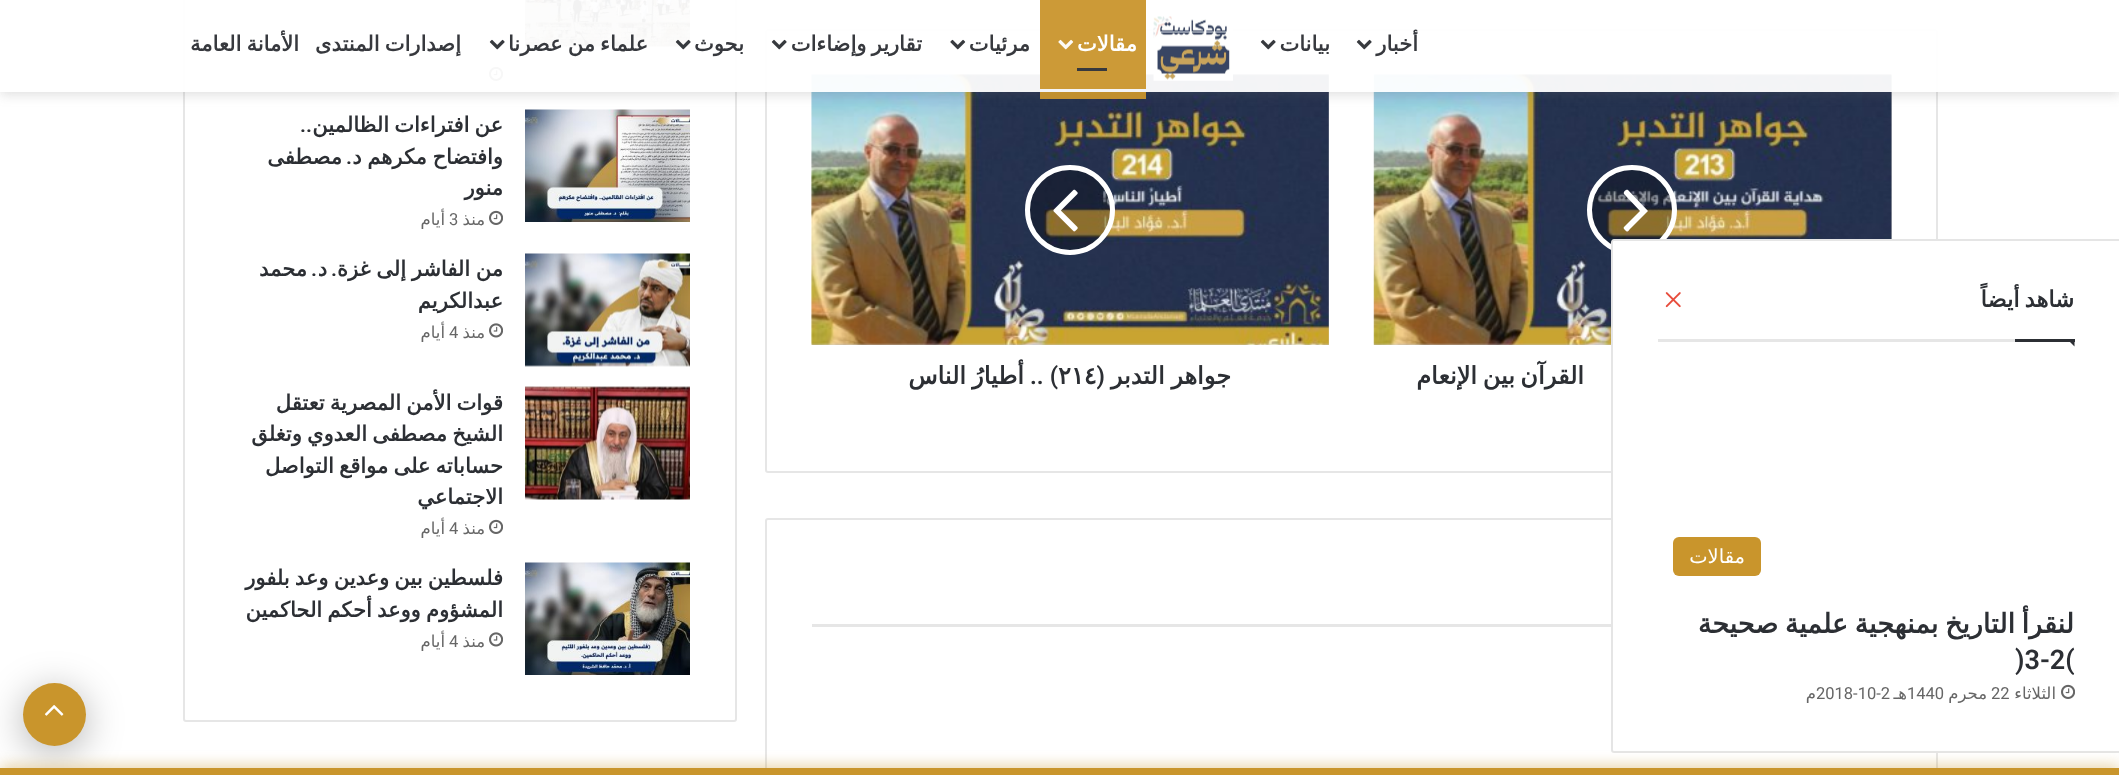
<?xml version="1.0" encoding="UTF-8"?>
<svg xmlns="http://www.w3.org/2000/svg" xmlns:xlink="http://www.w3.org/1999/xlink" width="2119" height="775">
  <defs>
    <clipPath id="clip1"><path d="M 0 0 h 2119 v 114 h -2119 z m 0 -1 h 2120 v 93 h -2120 z" clip-rule="evenodd" /></clipPath>
  </defs>
  <rect width="100%" height="100%" fill="#ffffff" />
  <rect x="766" y="30" width="1171" height="442" rx="2" fill="none" stroke="#e6e6e6" stroke-width="2" />
  <rect x="1374" y="75" width="518" height="270" fill="#cccccc" />
  <image x="1373" y="74" width="519" height="271" xlink:href="image9.png" />
  <rect x="812" y="75" width="517" height="270" fill="#cccccc" />
  <image x="811" y="74" width="518" height="271" xlink:href="image10.png" />
  <rect x="184" y="-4" width="552" height="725" rx="2" fill="none" stroke="#e6e6e6" stroke-width="2" />
  <image x="525" y="0" width="165" height="47" xlink:href="image12.png" />
  <image x="489" y="66" width="14" height="15" xlink:href="image8.png" />
  <image x="525" y="109" width="165" height="113" xlink:href="image13.png" />
  <g clip-path="url(#clip1)">
    <rect y="2" width="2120" height="93" fill="#636363" fill-opacity="0.2" filter="blur(6px)" />
  </g>
  <rect width="2119" height="92" fill="#ffffff" fill-opacity="0.95" />
  <image x="1356" y="39" width="16" height="11" xlink:href="image1.png" />
  <image x="1260" y="39" width="16" height="11" xlink:href="image1.png" />
  <image x="1153" y="16" width="80" height="65" xlink:href="image2.png" />
  <rect x="1040" y="92" width="106" height="7" fill="#c9952c" fill-opacity="0.95" />
  <rect x="1040" width="106" height="89" fill="#c9952c" fill-opacity="0.95" />
  <image x="1058" y="39" width="16" height="11" xlink:href="image3.png" />
  <rect x="1077" y="68" width="30" height="3" fill="#37393e" />
  <image x="950" y="39" width="16" height="11" xlink:href="image4.png" />
  <image x="771" y="39" width="16" height="11" xlink:href="image1.png" />
  <image x="675" y="39" width="16" height="11" xlink:href="image5.png" />
  <image x="489" y="39" width="16" height="11" xlink:href="image6.png" />
  <circle cx="1632" cy="210" r="42.5" fill="#000000" fill-opacity="0.3" stroke="#ffffff" stroke-width="5" />
  <rect x="766" y="519" width="1171" height="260" rx="2" fill="none" stroke="#e6e6e6" stroke-width="2" />
  <path d="M 1614 239 h 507 v 514 h -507 c -1.5 0 -3 -1.5 -3 -3 v -508 c 0 -1.5 1.5 -3 3 -3 z" fill="#ffffff" />
  <path d="M 1614 240 h 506 v 512 h -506 c -1 0 -2 -1 -2 -2 v -508 c 0 -1 1 -2 2 -2 z" fill="none" stroke="#000000" stroke-opacity="0.1" stroke-width="2" />
  <rect x="1658" y="339" width="357" height="3" fill="#e6e6e6" />
  <image x="1665" y="292" width="16" height="16" xlink:href="image7.png" />
  <path d="M 2067 339 h 7.5 v 7.5 z" fill="#2c2f34" />
  <rect x="2015" y="339" width="60" height="3" fill="#2c2f34" />
  <rect x="1673" y="537" width="88" height="39" rx="6" fill="#c9952c" />
  <image x="2061" y="684" width="14" height="15" xlink:href="image8.png" />
  <path d="M 1648 211 l -17 17 c -3 3 -3 5 -6 2 c -1 -1 -2 -2 -1 -3 l 16 -16 l -16 -17 c -1 -2 2 -5 4 -4 z" fill="#ffffff" />
  <circle cx="1070" cy="210" r="42.5" fill="#000000" fill-opacity="0.3" stroke="#ffffff" stroke-width="5" />
  <image x="1053" y="189" width="25" height="43" xlink:href="image11.png" />
  <rect x="812" y="624" width="799" height="3" fill="#e6e6e6" />
  <image x="489" y="210" width="14" height="15" xlink:href="image8.png" />
  <image x="525" y="253" width="165" height="114" xlink:href="image14.png" />
  <image x="489" y="323" width="14" height="15" xlink:href="image15.png" />
  <image x="525" y="386" width="165" height="114" xlink:href="image16.png" />
  <image x="489" y="519" width="14" height="15" xlink:href="image8.png" />
  <image x="525" y="562" width="165" height="113" xlink:href="image17.png" />
  <image x="489" y="632" width="14" height="15" xlink:href="image15.png" />
  <rect x="23" y="690" width="63" height="63" rx="31.5" fill="#000000" fill-opacity="0.3" filter="blur(19px)" />
  <circle cx="54.5" cy="714.5" r="31.5" fill="#c9952c" />
  <image x="44" y="705" width="20" height="11" xlink:href="image18.png" />
  <rect y="768" width="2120" height="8" fill="#c9952c" fill-opacity="0.7" filter="blur(7.5px)" />
  <rect y="768" width="2119" height="7" fill="#c9952c" />
  <text x="1418" y="51" style="font-family: DejaVu Sans; font-size: 21px; font-weight: bold; direction: rtl; fill: #37393e">أخبار</text>
  <text x="1330" y="51" style="font-family: DejaVu Sans; font-size: 21px; font-weight: bold; direction: rtl; fill: #37393e">بيانات</text>
  <text x="1137" y="51" style="font-family: DejaVu Sans; font-size: 21px; font-weight: bold; direction: rtl; fill: #ffffff">مقالات</text>
  <text x="1030" y="51" style="font-family: DejaVu Sans; font-size: 21px; font-weight: bold; direction: rtl; fill: #37393e">مرئيات</text>
  <text x="922" y="51" word-spacing="-1.5" style="font-family: DejaVu Sans; font-size: 21px; font-weight: bold; direction: rtl; fill: #37393e">تقارير وإضاءات</text>
  <text x="744" y="51" style="font-family: DejaVu Sans; font-size: 21px; font-weight: bold; direction: rtl; fill: #37393e">بحوث</text>
  <text x="648" y="51" word-spacing="-1.5" style="font-family: DejaVu Sans; font-size: 21px; font-weight: bold; direction: rtl; fill: #37393e">علماء من عصرنا</text>
  <text x="461" y="51" word-spacing="-1.5" style="font-family: DejaVu Sans; font-size: 21px; font-weight: bold; direction: rtl; fill: #37393e">إصدارات المنتدى</text>
  <text x="299" y="51" word-spacing="-1.5" style="font-family: DejaVu Sans; font-size: 21px; font-weight: bold; direction: rtl; fill: #37393e">الأمانة العامة</text>
  <text x="2074" y="307" word-spacing="-2" style="font-family: DejaVu Sans; font-size: 22.5px; font-weight: bold; direction: rtl; fill: #2c2f34">شاهد أيضاً</text>
  <text x="1745" y="563" style="font-family: DejaVu Sans; font-size: 19.5px; direction: rtl; fill: #ffffff">مقالات</text>
  <text x="2074" y="633" word-spacing="-2" style="font-family: DejaVu Sans; font-size: 27px; font-weight: bold; direction: rtl; fill: #2c2f34">لنقرأ التاريخ بمنهجية علمية صحيحة</text>
  <text x="2015" y="669" style="font-family: Roboto; font-size: 27px; font-weight: 600; fill: #2c2f34">)3-2(</text>
  <text x="2056" y="699" style="font-family: DejaVu Sans; font-size: 16.5px; direction: rtl; fill: #666666">الثلاثاء</text>
  <text x="1991" y="699" style="font-family: Roboto; font-size: 16.5px; fill: #666666">22</text>
  <text x="1987" y="699" style="font-family: DejaVu Sans; font-size: 16.5px; direction: rtl; fill: #666666">محرم</text>
  <text x="1907" y="699" style="font-family: Roboto; font-size: 16.5px; fill: #666666">1440</text>
  <text x="1907" y="699" style="font-family: DejaVu Sans; font-size: 16.5px; direction: rtl; fill: #666666">هـ</text>
  <text x="1816" y="699" style="font-family: Roboto; font-size: 16.5px; fill: #666666">2018-10-2</text>
  <text x="1816" y="699" style="font-family: DejaVu Sans; font-size: 16.5px; direction: rtl; fill: #666666">م</text>
  <text x="1584" y="384" style="font-family: DejaVu Sans; font-size: 24px; font-weight: bold; direction: rtl; fill: #2c2f34">القرآن</text>
  <text x="1515" y="384" style="font-family: DejaVu Sans; font-size: 24px; font-weight: bold; direction: rtl; fill: #2c2f34">بين</text>
  <text x="1477" y="384" style="font-family: DejaVu Sans; font-size: 24px; font-weight: bold; direction: rtl; fill: #2c2f34">الإنعام</text>
  <text x="1231" y="384" word-spacing="-1" style="font-family: DejaVu Sans; font-size: 24px; font-weight: bold; direction: rtl; fill: #2c2f34">جواهر التدبر</text>
  <text x="1105" y="384" style="font-family: Roboto; font-size: 24px; font-weight: 600; direction: rtl; fill: #2c2f34">(</text>
  <text x="1058" y="384" style="font-family: DejaVu Sans; font-size: 24px; font-weight: bold; fill: #2c2f34">٢١٤</text>
  <text x="1058" y="384" style="font-family: Roboto; font-size: 24px; font-weight: 600; direction: rtl; fill: #2c2f34">) ..</text>
  <text x="1024" y="384" style="font-family: DejaVu Sans; font-size: 24px; font-weight: bold; direction: rtl; fill: #2c2f34">أطيارُ</text>
  <text x="966" y="384" style="font-family: DejaVu Sans; font-size: 24px; font-weight: bold; direction: rtl; fill: #2c2f34">الناس</text>
  <text x="503" y="132" word-spacing="-1.5" style="font-family: DejaVu Sans; font-size: 21px; font-weight: bold; direction: rtl; fill: #2c2f34">عن افتراءات الظالمين</text>
  <text x="312" y="132" style="font-family: Roboto; font-size: 21px; font-weight: 600; direction: rtl; fill: #2c2f34">..</text>
  <text x="503" y="164" word-spacing="-1" style="font-family: DejaVu Sans; font-size: 21px; font-weight: bold; direction: rtl; fill: #2c2f34">وافتضاح مكرهم د</text>
  <text x="352" y="164" style="font-family: Roboto; font-size: 21px; font-weight: 600; direction: rtl; fill: #2c2f34">.</text>
  <text x="342" y="164" style="font-family: DejaVu Sans; font-size: 21px; font-weight: bold; direction: rtl; fill: #2c2f34">مصطفى</text>
  <text x="503" y="195" style="font-family: DejaVu Sans; font-size: 21px; font-weight: bold; direction: rtl; fill: #2c2f34">منور</text>
  <text x="485" y="225" style="font-family: DejaVu Sans; font-size: 16.5px; direction: rtl; fill: #666666">منذ</text>
  <text x="449" y="225" style="font-family: Roboto; font-size: 16.5px; fill: #666666">3</text>
  <text x="445" y="225" style="font-family: DejaVu Sans; font-size: 16.5px; direction: rtl; fill: #666666">أيام</text>
  <text x="503" y="276" word-spacing="-1" style="font-family: DejaVu Sans; font-size: 21px; font-weight: bold; direction: rtl; fill: #2c2f34">من الفاشر إلى غزة</text>
  <text x="337" y="276" style="font-family: Roboto; font-size: 21px; font-weight: 600; direction: rtl; fill: #2c2f34">.</text>
  <text x="327" y="276" style="font-family: DejaVu Sans; font-size: 21px; font-weight: bold; direction: rtl; fill: #2c2f34">د</text>
  <text x="317" y="276" style="font-family: Roboto; font-size: 21px; font-weight: 600; direction: rtl; fill: #2c2f34">.</text>
  <text x="307" y="276" style="font-family: DejaVu Sans; font-size: 21px; font-weight: bold; direction: rtl; fill: #2c2f34">محمد</text>
  <text x="503" y="308" style="font-family: DejaVu Sans; font-size: 21px; font-weight: bold; direction: rtl; fill: #2c2f34">عبدالكريم</text>
  <text x="485" y="338" style="font-family: DejaVu Sans; font-size: 16.5px; direction: rtl; fill: #666666">منذ</text>
  <text x="449" y="338" style="font-family: Roboto; font-size: 16.5px; fill: #666666">4</text>
  <text x="445" y="338" style="font-family: DejaVu Sans; font-size: 16.5px; direction: rtl; fill: #666666">أيام</text>
  <text x="503" y="410" word-spacing="-1.5" style="font-family: DejaVu Sans; font-size: 21px; font-weight: bold; direction: rtl; fill: #2c2f34">قوات الأمن المصرية تعتقل</text>
  <text x="503" y="441" word-spacing="-1.5" style="font-family: DejaVu Sans; font-size: 21px; font-weight: bold; direction: rtl; fill: #2c2f34">الشيخ مصطفى العدوي وتغلق</text>
  <text x="503" y="473" word-spacing="-1.5" style="font-family: DejaVu Sans; font-size: 21px; font-weight: bold; direction: rtl; fill: #2c2f34">حساباته على مواقع التواصل</text>
  <text x="503" y="504" style="font-family: DejaVu Sans; font-size: 21px; font-weight: bold; direction: rtl; fill: #2c2f34">الاجتماعي</text>
  <text x="485" y="534" style="font-family: DejaVu Sans; font-size: 16.5px; direction: rtl; fill: #666666">منذ</text>
  <text x="449" y="534" style="font-family: Roboto; font-size: 16.5px; fill: #666666">4</text>
  <text x="445" y="534" style="font-family: DejaVu Sans; font-size: 16.5px; direction: rtl; fill: #666666">أيام</text>
  <text x="503" y="585" word-spacing="-1.5" style="font-family: DejaVu Sans; font-size: 21px; font-weight: bold; direction: rtl; fill: #2c2f34">فلسطين بين وعدين وعد بلفور</text>
  <text x="503" y="617" word-spacing="-1.5" style="font-family: DejaVu Sans; font-size: 21px; font-weight: bold; direction: rtl; fill: #2c2f34">المشؤوم ووعد أحكم الحاكمين</text>
  <text x="485" y="647" style="font-family: DejaVu Sans; font-size: 16.5px; direction: rtl; fill: #666666">منذ</text>
  <text x="449" y="647" style="font-family: Roboto; font-size: 16.5px; fill: #666666">4</text>
  <text x="445" y="647" style="font-family: DejaVu Sans; font-size: 16.5px; direction: rtl; fill: #666666">أيام</text>
</svg>
